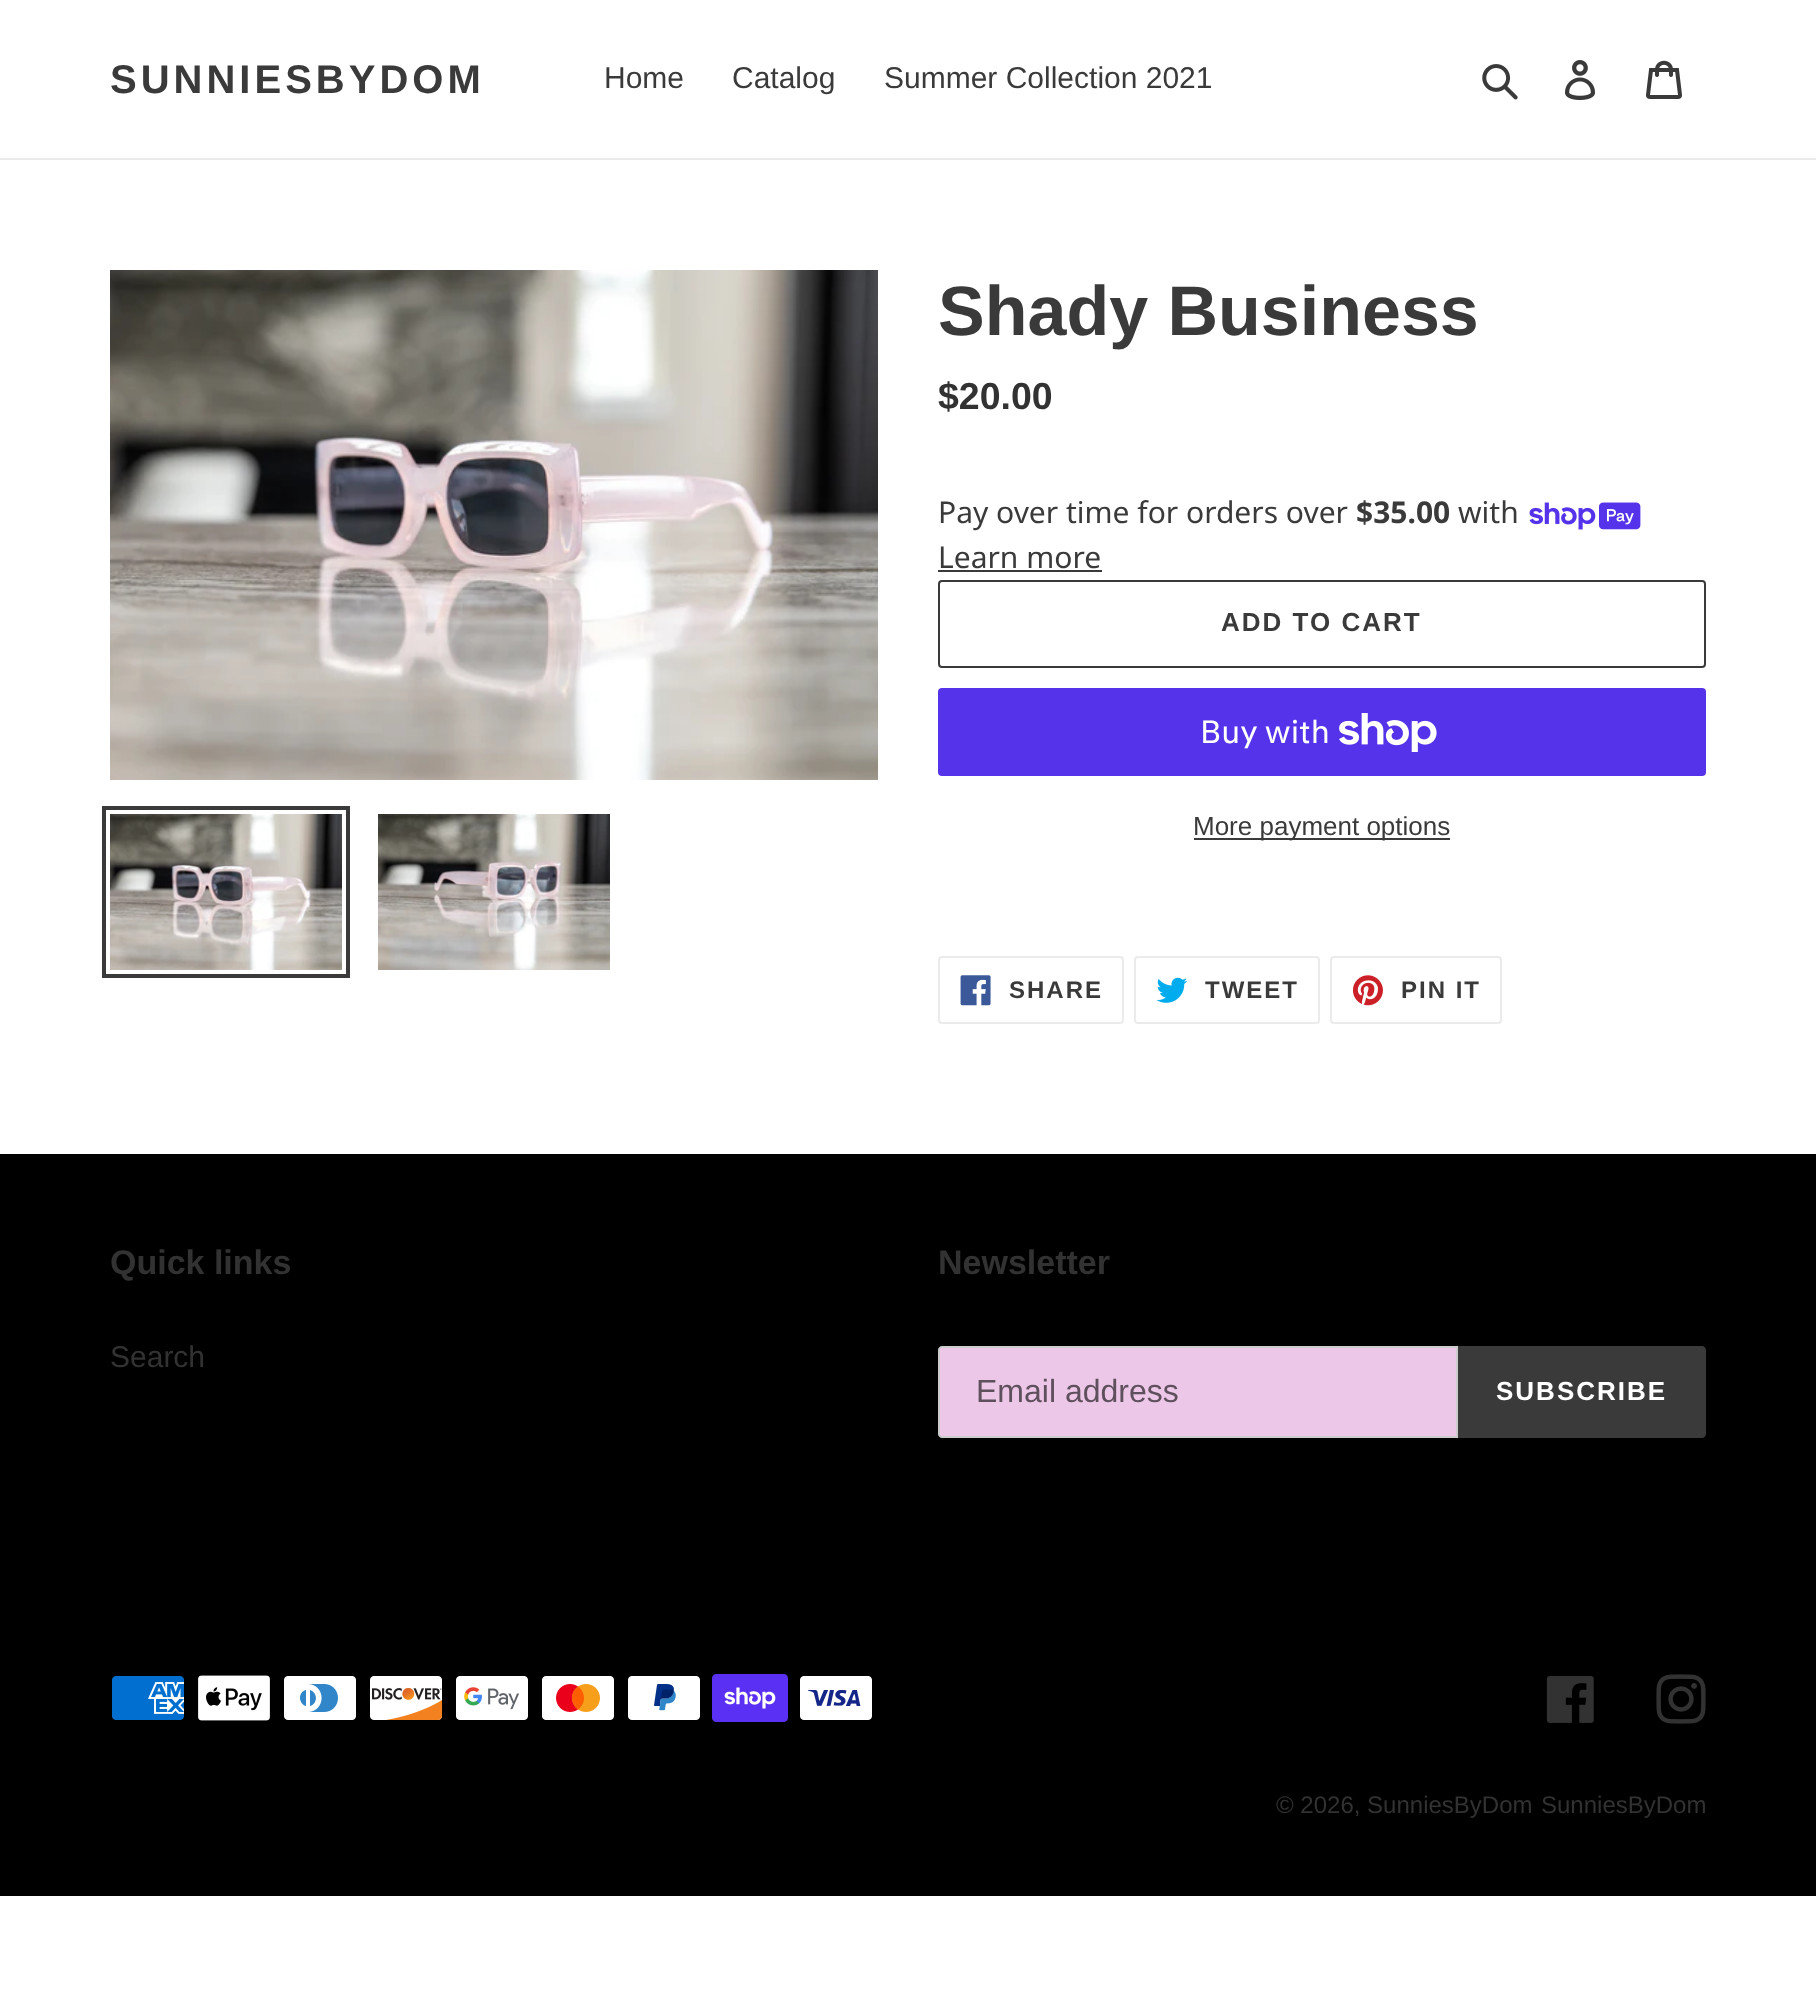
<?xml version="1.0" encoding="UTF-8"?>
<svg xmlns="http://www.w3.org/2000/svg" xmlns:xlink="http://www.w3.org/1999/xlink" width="1816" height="2000">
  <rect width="100%" height="100%" fill="#ffffff" />
  <rect y="158" width="1816" height="2" fill="#ebebeb" />
  <image x="1482" y="64" width="36" height="36" xlink:href="image1.png" />
  <image x="1565" y="60" width="31" height="40" xlink:href="image2.png" />
  <image x="1646" y="60" width="36" height="39" xlink:href="image3.png" />
  <image x="110" y="270" width="768" height="510" xlink:href="image4.png" />
  <rect x="104" y="808" width="244" height="168" fill="none" stroke="#3a3a3a" stroke-width="4" />
  <image x="110" y="814" width="232" height="156" xlink:href="image5.png" />
  <image x="378" y="814" width="232" height="156" xlink:href="image6.png" />
  <image x="1529" y="502" width="112" height="28" xlink:href="image7.png" />
  <rect x="938" y="570" width="164" height="2" fill="#3a3a3a" />
  <rect x="939" y="581" width="766" height="86" rx="3" fill="none" stroke="#3a3a3a" stroke-width="2" />
  <rect x="938" y="688" width="768" height="88" rx="4" fill="#5433eb" />
  <image x="1339" y="713" width="98" height="39" xlink:href="image8.png" />
  <rect x="1194" y="838" width="256" height="2" fill="#3a3a3a" />
  <rect x="939" y="957" width="184" height="66" rx="3" fill="none" stroke="#ebebeb" stroke-width="2" />
  <image x="960" y="975" width="31" height="31" xlink:href="image9.png" />
  <rect x="1135" y="957" width="184" height="66" rx="3" fill="none" stroke="#ebebeb" stroke-width="2" />
  <image x="1156" y="977" width="32" height="26" xlink:href="image10.png" />
  <rect x="1331" y="957" width="170" height="66" rx="3" fill="none" stroke="#ebebeb" stroke-width="2" />
  <image x="1352" y="975" width="31" height="31" xlink:href="image11.png" />
  <rect y="1154" width="1816" height="742" fill="#000000" />
  <path d="M 942 1347 h 515 v 90 h -515 c -1.5 0 -3 -1.5 -3 -3 v -84 c 0 -1.5 1.5 -3 3 -3 z" fill="#edc7e8" stroke="#cccccc" stroke-width="2" />
  <path d="M 1458 1346 h 244 c 2 0 4 2 4 4 v 84 c 0 2 -2 4 -4 4 h -244 z" fill="#3a3a3a" />
  <image x="112" y="1676" width="72" height="44" xlink:href="image12.png" />
  <image x="198" y="1675" width="72" height="46" xlink:href="image13.png" />
  <image x="284" y="1676" width="72" height="44" xlink:href="image14.png" />
  <image x="370" y="1676" width="73" height="44" xlink:href="image15.png" />
  <image x="456" y="1676" width="72" height="44" xlink:href="image16.png" />
  <image x="542" y="1676" width="72" height="44" xlink:href="image17.png" />
  <image x="628" y="1676" width="72" height="44" xlink:href="image18.png" />
  <image x="712" y="1674" width="76" height="48" xlink:href="image19.png" />
  <image x="800" y="1676" width="72" height="44" xlink:href="image20.png" />
  <image x="1546" y="1676" width="48" height="47" xlink:href="image21.png" />
  <image x="1656" y="1674" width="50" height="50" xlink:href="image22.png" />
  <text x="110" y="93" style="font-family: Liberation Sans; font-size: 40px; font-weight: bold; letter-spacing: 4px; fill: #3a3a3a">SUNNIESBYDOM</text>
  <text x="604" y="88" style="font-family: Liberation Sans; font-size: 30px; fill: #3a3a3a">Home</text>
  <text x="732" y="88" style="font-family: Liberation Sans; font-size: 30px; fill: #3a3a3a">Catalog</text>
  <text x="884" y="88" style="font-family: Liberation Sans; font-size: 30px; fill: #3a3a3a">Summer Collection 2021</text>
  <text x="938" y="335" style="font-family: Liberation Sans; font-size: 70px; font-weight: bold; fill: #3a3a3a">Shady Business</text>
  <text x="938" y="409" style="font-family: Liberation Sans; font-size: 37.5px; font-weight: bold; fill: #333232">$20.00</text>
  <text x="938" y="523" style="font-family: Noto Sans; font-size: 30px; fill: #3a3a3a">Pay over time for orders over</text>
  <text x="1356" y="523" style="font-family: Noto Sans; font-size: 30px; font-weight: bold; fill: #3a3a3a">$35.00</text>
  <text x="1458" y="523" style="font-family: Noto Sans; font-size: 30px; fill: #3a3a3a">with</text>
  <text x="938" y="568" style="font-family: Noto Sans; font-size: 30px; fill: #3a3a3a">Learn more</text>
  <text x="1221" y="631" style="font-family: Liberation Sans; font-size: 26px; font-weight: bold; letter-spacing: 2px; fill: #3a3a3a">ADD TO CART</text>
  <text x="1200" y="743" style="font-family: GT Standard; font-size: 32px; fill: #ffffff">Buy with</text>
  <text x="1193" y="835" style="font-family: Liberation Sans; font-size: 26px; fill: #3a3a3a">More payment options</text>
  <text x="1009" y="998" style="font-family: Liberation Sans; font-size: 24px; font-weight: bold; letter-spacing: 2px; fill: #3a3a3a">SHARE</text>
  <text x="1205" y="998" style="font-family: Liberation Sans; font-size: 24px; font-weight: bold; letter-spacing: 2px; fill: #3a3a3a">TWEET</text>
  <text x="1401" y="998" style="font-family: Liberation Sans; font-size: 24px; font-weight: bold; letter-spacing: 2px; fill: #3a3a3a">PIN IT</text>
  <text x="110" y="1274" style="font-family: Liberation Sans; font-size: 34px; font-weight: bold; fill: #333232">Quick links</text>
  <text x="110" y="1367" style="font-family: Liberation Sans; font-size: 30px; fill: #333232">Search</text>
  <text x="938" y="1274" style="font-family: Liberation Sans; font-size: 34px; font-weight: bold; fill: #333232">Newsletter</text>
  <text x="976" y="1402" style="font-family: Liberation Sans; font-size: 32px; fill: #5f505d">Email address</text>
  <text x="1496" y="1400" style="font-family: Liberation Sans; font-size: 26px; font-weight: bold; letter-spacing: 2px; fill: #ffffff">SUBSCRIBE</text>
  <text x="1276" y="1813" style="font-family: Liberation Sans; font-size: 24px; fill: #333232">© 2026, SunniesByDom</text>
  <text x="1541" y="1813" style="font-family: Liberation Sans; font-size: 24px; fill: #333232">SunniesByDom</text>
</svg>
